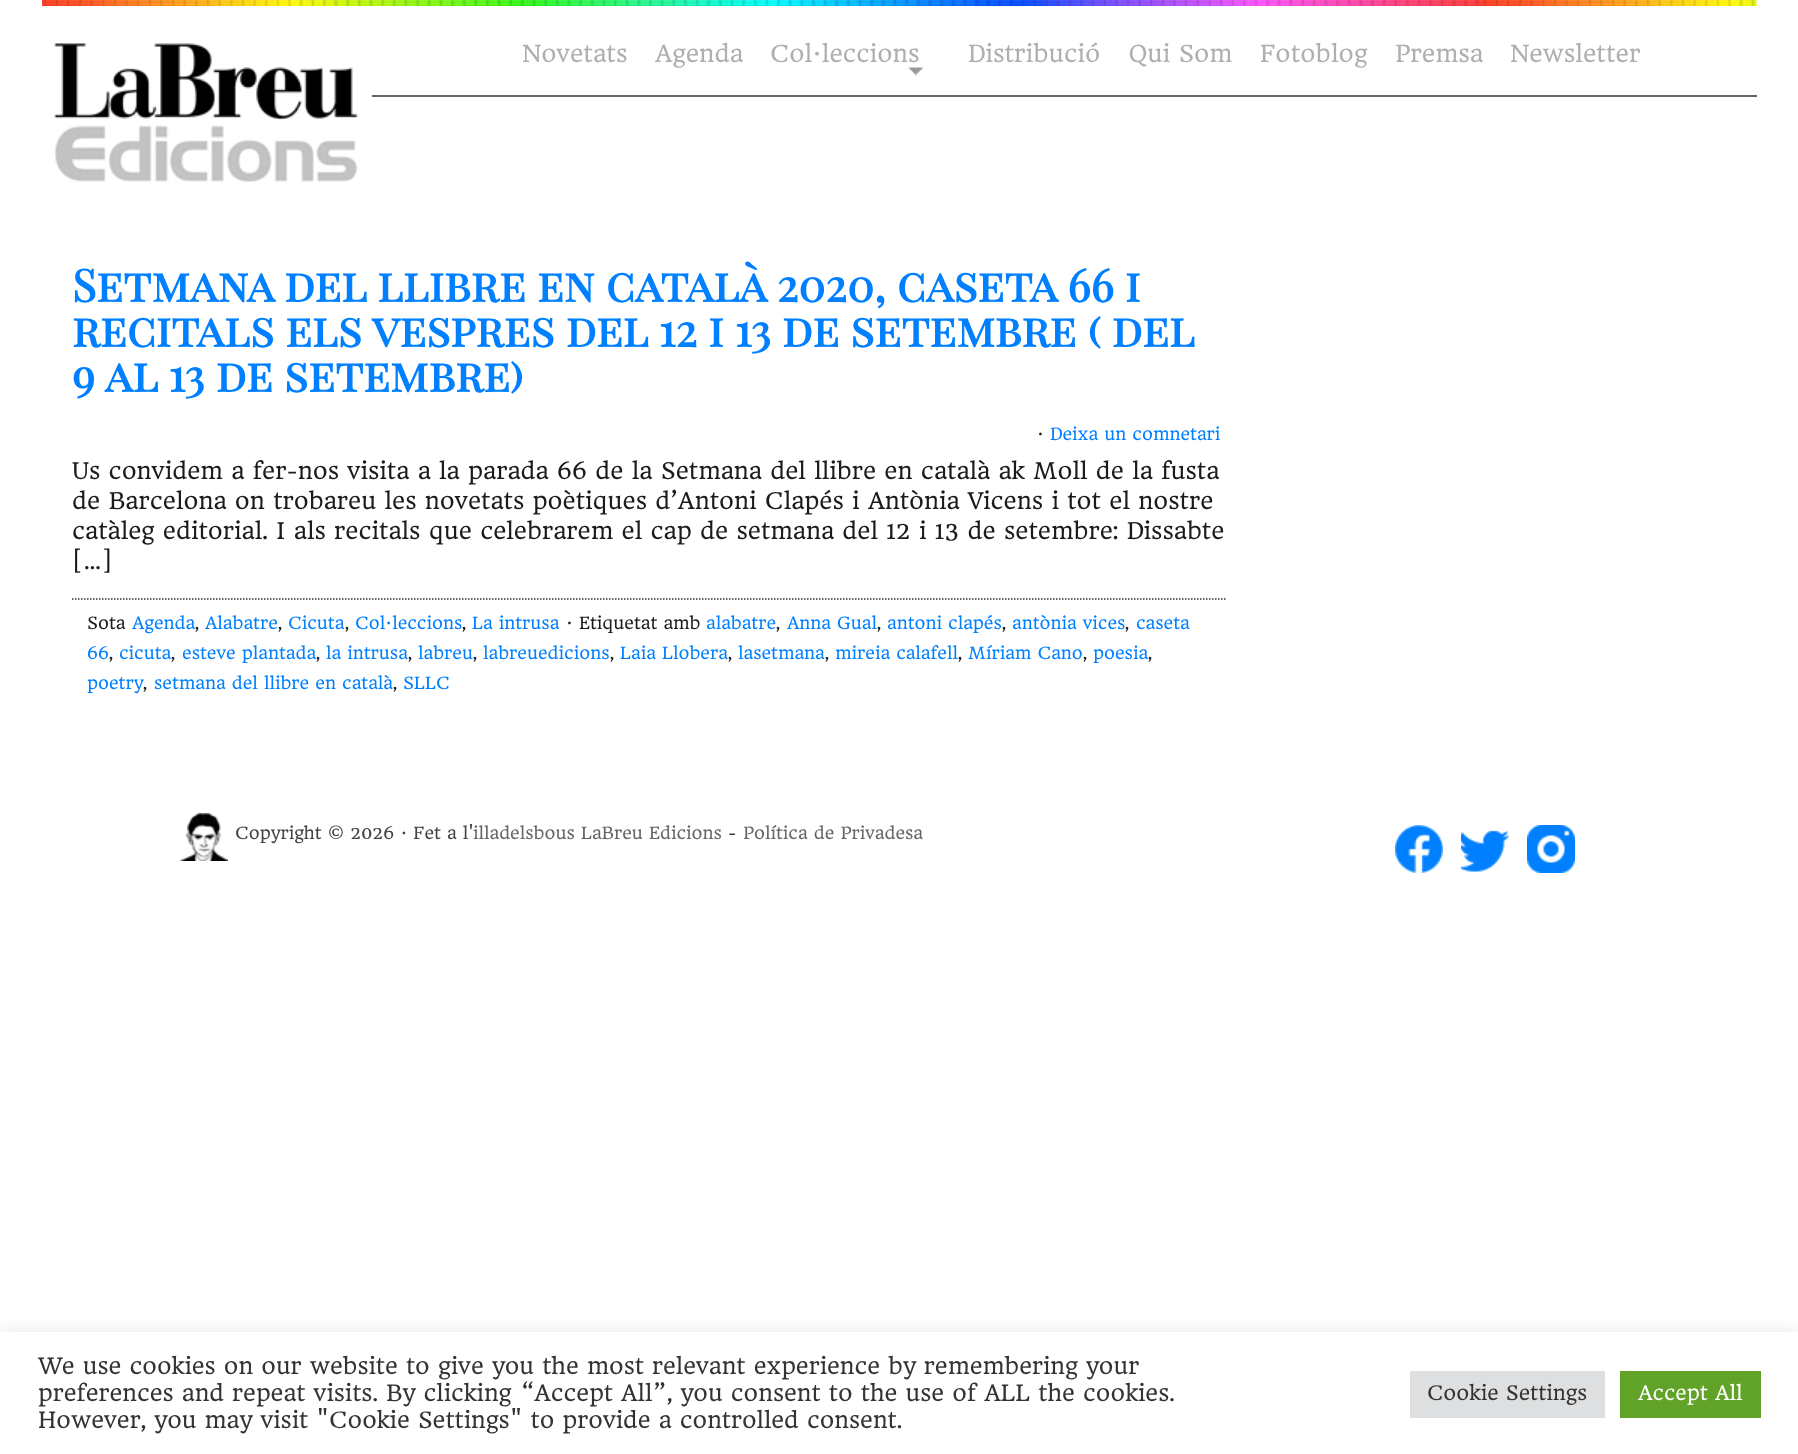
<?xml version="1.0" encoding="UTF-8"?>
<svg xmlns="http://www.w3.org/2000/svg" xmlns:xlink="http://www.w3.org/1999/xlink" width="1798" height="1454">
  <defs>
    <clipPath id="clip1"><rect x="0" y="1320" width="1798" height="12" /></clipPath>
  </defs>
  <rect width="100%" height="100%" fill="#ffffff" />
  <image x="42" y="0" width="1715" height="6" xlink:href="image1.png" />
  <rect x="372" y="95" width="1385" height="2" fill="#666666" />
  <image x="42" y="43" width="330" height="139" xlink:href="image2.png" />
  <image x="908" y="67" width="15" height="9" xlink:href="image3.png" />
  <path d="M 72 599 h 1153.5" fill="none" stroke="#333333" stroke-width="1.5" stroke-dasharray="1.5 1.5" />
  <image x="180" y="813" width="48" height="48" xlink:href="image4.png" />
  <image x="1395" y="825" width="48" height="48" xlink:href="image5.png" />
  <image x="1461" y="830" width="48" height="42" xlink:href="image6.png" />
  <image x="1527" y="825" width="48" height="48" xlink:href="image7.png" />
  <g clip-path="url(#clip1)">
    <rect y="1331" width="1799" height="123" fill="#acabab" fill-opacity="0.3" filter="blur(7.5px)" />
  </g>
  <rect x="1410" y="1371" width="195" height="47" fill="#dedfe0" />
  <rect x="1620" y="1371" width="141" height="47" fill="#61a229" />
  <text x="522" y="62" style="font-family: HeadlandOne; font-size: 23px; fill: #afafaf">Novetats</text>
  <text x="655" y="62" style="font-family: HeadlandOne; font-size: 23px; fill: #afafaf">Agenda</text>
  <text x="770" y="62" style="font-family: HeadlandOne; font-size: 23px; fill: #afafaf">Col·leccions</text>
  <text x="968" y="62" style="font-family: HeadlandOne; font-size: 23px; fill: #afafaf">Distribució</text>
  <text x="1128" y="62" style="font-family: HeadlandOne; font-size: 23px; fill: #afafaf">Qui Som</text>
  <text x="1260" y="62" style="font-family: HeadlandOne; font-size: 23px; fill: #afafaf">Fotoblog</text>
  <text x="1395" y="62" style="font-family: HeadlandOne; font-size: 23px; fill: #afafaf">Premsa</text>
  <text x="1510" y="62" style="font-family: HeadlandOne; font-size: 23px; fill: #afafaf">Newsletter</text>
  <text x="72" y="302" style="font-family: Playfair Display SC; font-size: 45px; font-weight: bold; fill: #0080ff">Setmana del llibre en català 2020, caseta 66 i</text>
  <text x="72" y="347" style="font-family: Playfair Display SC; font-size: 45px; font-weight: bold; fill: #0080ff">recitals els vespres del 12 i 13 de setembre ( del</text>
  <text x="72" y="392" style="font-family: Playfair Display SC; font-size: 45px; font-weight: bold; fill: #0080ff">9 al 13 de setembre)</text>
  <text x="1037" y="440" style="font-family: HeadlandOne; font-size: 16.5px; fill: #1d1a1a">·</text>
  <text x="1050" y="440" style="font-family: HeadlandOne; font-size: 16.5px; fill: #0080ff">Deixa un comnetari</text>
  <text x="72" y="479" style="font-family: HeadlandOne; font-size: 22.5px; fill: #1d1a1a">Us convidem a fer-nos visita a la parada 66 de la Setmana del llibre en català ak Moll de la fusta</text>
  <text x="72" y="509" style="font-family: HeadlandOne; font-size: 22.5px; fill: #1d1a1a">de Barcelona on trobareu les novetats poètiques d’Antoni Clapés i Antònia Vicens i tot el nostre</text>
  <text x="72" y="539" style="font-family: HeadlandOne; font-size: 22.5px; fill: #1d1a1a">catàleg editorial. I als recitals que celebrarem el cap de setmana del 12 i 13 de setembre: Dissabte</text>
  <text x="72" y="569" style="font-family: HeadlandOne; font-size: 22.5px; fill: #1d1a1a">[…]</text>
  <text x="87" y="629" style="font-family: HeadlandOne; font-size: 16.5px; fill: #1d1a1a">Sota</text>
  <text x="132" y="629" style="font-family: HeadlandOne; font-size: 16.5px; fill: #0080ff">Agenda</text>
  <text x="195" y="629" style="font-family: HeadlandOne; font-size: 16.5px; fill: #1d1a1a">,</text>
  <text x="205" y="629" style="font-family: HeadlandOne; font-size: 16.5px; fill: #0080ff">Alabatre</text>
  <text x="278" y="629" style="font-family: HeadlandOne; font-size: 16.5px; fill: #1d1a1a">,</text>
  <text x="288" y="629" style="font-family: HeadlandOne; font-size: 16.5px; fill: #0080ff">Cicuta</text>
  <text x="345" y="629" style="font-family: HeadlandOne; font-size: 16.5px; fill: #1d1a1a">,</text>
  <text x="355" y="629" style="font-family: HeadlandOne; font-size: 16.5px; fill: #0080ff">Col·leccions</text>
  <text x="462" y="629" style="font-family: HeadlandOne; font-size: 16.5px; fill: #1d1a1a">,</text>
  <text x="472" y="629" style="font-family: HeadlandOne; font-size: 16.5px; fill: #0080ff">La intrusa</text>
  <text x="566" y="629" style="font-family: HeadlandOne; font-size: 16.5px; fill: #1d1a1a">· Etiquetat amb</text>
  <text x="706" y="629" style="font-family: HeadlandOne; font-size: 16.5px; fill: #0080ff">alabatre</text>
  <text x="776" y="629" style="font-family: HeadlandOne; font-size: 16.5px; fill: #1d1a1a">,</text>
  <text x="787" y="629" style="font-family: HeadlandOne; font-size: 16.5px; fill: #0080ff">Anna Gual</text>
  <text x="877" y="629" style="font-family: HeadlandOne; font-size: 16.5px; fill: #1d1a1a">,</text>
  <text x="887" y="629" style="font-family: HeadlandOne; font-size: 16.5px; fill: #0080ff">antoni clapés</text>
  <text x="1002" y="629" style="font-family: HeadlandOne; font-size: 16.5px; fill: #1d1a1a">,</text>
  <text x="1012" y="629" style="font-family: HeadlandOne; font-size: 16.5px; fill: #0080ff">antònia vices</text>
  <text x="1125" y="629" style="font-family: HeadlandOne; font-size: 16.5px; fill: #1d1a1a">,</text>
  <text x="1136" y="629" style="font-family: HeadlandOne; font-size: 16.5px; fill: #0080ff">caseta</text>
  <text x="87" y="659" style="font-family: HeadlandOne; font-size: 16.5px; fill: #0080ff">66</text>
  <text x="109" y="659" style="font-family: HeadlandOne; font-size: 16.5px; fill: #1d1a1a">,</text>
  <text x="119" y="659" style="font-family: HeadlandOne; font-size: 16.5px; fill: #0080ff">cicuta</text>
  <text x="171" y="659" style="font-family: HeadlandOne; font-size: 16.5px; fill: #1d1a1a">,</text>
  <text x="182" y="659" style="font-family: HeadlandOne; font-size: 16.5px; fill: #0080ff">esteve plantada</text>
  <text x="316" y="659" style="font-family: HeadlandOne; font-size: 16.5px; fill: #1d1a1a">,</text>
  <text x="326" y="659" style="font-family: HeadlandOne; font-size: 16.5px; fill: #0080ff">la intrusa</text>
  <text x="408" y="659" style="font-family: HeadlandOne; font-size: 16.5px; fill: #1d1a1a">,</text>
  <text x="418" y="659" style="font-family: HeadlandOne; font-size: 16.5px; fill: #0080ff">labreu</text>
  <text x="473" y="659" style="font-family: HeadlandOne; font-size: 16.5px; fill: #1d1a1a">,</text>
  <text x="483" y="659" style="font-family: HeadlandOne; font-size: 16.5px; fill: #0080ff">labreuedicions</text>
  <text x="610" y="659" style="font-family: HeadlandOne; font-size: 16.5px; fill: #1d1a1a">,</text>
  <text x="620" y="659" style="font-family: HeadlandOne; font-size: 16.5px; fill: #0080ff">Laia Llobera</text>
  <text x="728" y="659" style="font-family: HeadlandOne; font-size: 16.5px; fill: #1d1a1a">,</text>
  <text x="738" y="659" style="font-family: HeadlandOne; font-size: 16.5px; fill: #0080ff">lasetmana</text>
  <text x="825" y="659" style="font-family: HeadlandOne; font-size: 16.5px; fill: #1d1a1a">,</text>
  <text x="835" y="659" style="font-family: HeadlandOne; font-size: 16.5px; fill: #0080ff">mireia calafell</text>
  <text x="958" y="659" style="font-family: HeadlandOne; font-size: 16.5px; fill: #1d1a1a">,</text>
  <text x="968" y="659" style="font-family: HeadlandOne; font-size: 16.5px; fill: #0080ff">Míriam Cano</text>
  <text x="1083" y="659" style="font-family: HeadlandOne; font-size: 16.5px; fill: #1d1a1a">,</text>
  <text x="1093" y="659" style="font-family: HeadlandOne; font-size: 16.5px; fill: #0080ff">poesia</text>
  <text x="1148" y="659" style="font-family: HeadlandOne; font-size: 16.5px; fill: #1d1a1a">,</text>
  <text x="87" y="689" style="font-family: HeadlandOne; font-size: 16.5px; fill: #0080ff">poetry</text>
  <text x="143" y="689" style="font-family: HeadlandOne; font-size: 16.5px; fill: #1d1a1a">,</text>
  <text x="154" y="689" style="font-family: HeadlandOne; font-size: 16.5px; fill: #0080ff">setmana del llibre en català</text>
  <text x="393" y="689" style="font-family: HeadlandOne; font-size: 16.5px; fill: #1d1a1a">,</text>
  <text x="403" y="689" style="font-family: HeadlandOne; font-size: 16.5px; fill: #0080ff">SLLC</text>
  <text x="235" y="839" style="font-family: HeadlandOne; font-size: 16.5px; fill: #444444">Copyright © 2026 · Fet a l'</text>
  <text x="473" y="839" style="font-family: HeadlandOne; font-size: 16.5px; fill: #666666">illadelsbous LaBreu Edicions</text>
  <text x="728" y="839" style="font-family: HeadlandOne; font-size: 16.5px; fill: #444444">-</text>
  <text x="743" y="839" style="font-family: HeadlandOne; font-size: 16.5px; fill: #666666">Política de Privadesa</text>
  <text x="38" y="1374" style="font-family: HeadlandOne; font-size: 22px; fill: #333333">We use cookies on our website to give you the most relevant experience by remembering your</text>
  <text x="38" y="1401" style="font-family: HeadlandOne; font-size: 22px; fill: #333333">preferences and repeat visits. By clicking “Accept All”, you consent to the use of ALL the cookies.</text>
  <text x="38" y="1428" style="font-family: HeadlandOne; font-size: 22px; fill: #333333">However, you may visit "Cookie Settings" to provide a controlled consent.</text>
  <text x="1427" y="1400" style="font-family: HeadlandOne; font-size: 19.5px; fill: #333333">Cookie Settings</text>
  <text x="1638" y="1400" style="font-family: HeadlandOne; font-size: 19.5px; fill: #ffffff">Accept All</text>
</svg>
